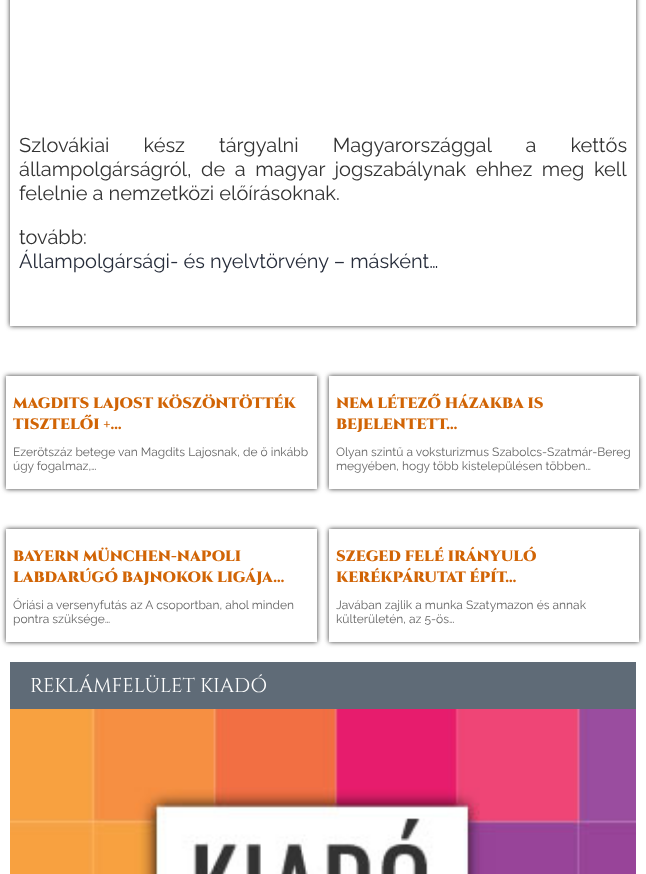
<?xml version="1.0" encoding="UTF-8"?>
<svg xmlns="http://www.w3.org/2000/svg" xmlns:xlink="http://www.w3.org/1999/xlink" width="646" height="874">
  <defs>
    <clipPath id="clip1"><path d="M 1 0 h 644 v 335 h -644 z m 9 -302 h 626 v 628 h -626 z" clip-rule="evenodd" /></clipPath>
    <clipPath id="clip2"><path d="M 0 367 h 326 v 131 h -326 z m 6 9 h 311 v 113 h -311 z" clip-rule="evenodd" /></clipPath>
    <clipPath id="clip3"><path d="M 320 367 h 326 v 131 h -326 z m 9 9 h 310 v 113 h -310 z" clip-rule="evenodd" /></clipPath>
    <clipPath id="clip4"><path d="M 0 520 h 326 v 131 h -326 z m 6 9 h 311 v 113 h -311 z" clip-rule="evenodd" /></clipPath>
    <clipPath id="clip5"><path d="M 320 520 h 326 v 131 h -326 z m 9 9 h 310 v 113 h -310 z" clip-rule="evenodd" /></clipPath>
  </defs>
  <rect width="100%" height="100%" fill="#ffffff" />
  <g clip-path="url(#clip1)">
    <rect x="10" y="-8" width="626" height="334" fill="#333333" filter="blur(2.5px)" />
  </g>
  <g clip-path="url(#clip2)">
    <rect x="6" y="376" width="311" height="113" fill="#333333" filter="blur(2.5px)" />
  </g>
  <g clip-path="url(#clip3)">
    <rect x="329" y="376" width="310" height="113" fill="#333333" filter="blur(2.5px)" />
  </g>
  <g clip-path="url(#clip4)">
    <rect x="6" y="529" width="311" height="113" fill="#333333" filter="blur(2.5px)" />
  </g>
  <g clip-path="url(#clip5)">
    <rect x="329" y="529" width="310" height="113" fill="#333333" filter="blur(2.5px)" />
  </g>
  <rect x="10" y="662" width="626" height="47" fill="#5f6b77" />
  <image x="10" y="709" width="626" height="165" xlink:href="image1.png" />
  <text x="19" y="152" word-spacing="29" style="font-family: Raleway; font-size: 20px; fill: #333333">Szlovákiai kész tárgyalni Magyarországgal a kettős</text>
  <text x="19" y="176" word-spacing="4.5" style="font-family: Raleway; font-size: 20px; fill: #333333">állampolgárságról, de a magyar jogszabálynak ehhez meg kell</text>
  <text x="19" y="200" style="font-family: Raleway; font-size: 20px; fill: #333333">felelnie a nemzetközi előírásoknak.</text>
  <text x="19" y="244" style="font-family: Raleway; font-size: 20px; fill: #333333">tovább:</text>
  <text x="19" y="268" style="font-family: Raleway; font-size: 20px; fill: #272d3b">Állampolgársági- és nyelvtörvény – másként…</text>
  <text x="13" y="408" style="font-family: Cinzel; font-size: 15px; font-weight: 900; fill: #d16405">MAGDITS LAJOST KÖSZÖNTÖTTÉK</text>
  <text x="13" y="429" style="font-family: Cinzel; font-size: 15px; font-weight: 900; fill: #d16405">TISZTELŐI +…</text>
  <text x="13" y="456" style="font-family: Raleway; font-size: 12px; fill: #666666">Ezerötszáz betege van Magdits Lajosnak, de ő inkább</text>
  <text x="13" y="470" style="font-family: Raleway; font-size: 12px; fill: #666666">úgy fogalmaz,…</text>
  <text x="336" y="408" style="font-family: Cinzel; font-size: 15px; font-weight: 900; fill: #d16405">NEM LÉTEZŐ HÁZAKBA IS</text>
  <text x="336" y="429" style="font-family: Cinzel; font-size: 15px; font-weight: 900; fill: #d16405">BEJELENTETT…</text>
  <text x="336" y="456" style="font-family: Raleway; font-size: 12px; fill: #666666">Olyan szintű a voksturizmus Szabolcs-Szatmár-Bereg</text>
  <text x="336" y="470" style="font-family: Raleway; font-size: 12px; fill: #666666">megyében, hogy több kistelepülésen többen…</text>
  <text x="13" y="561" style="font-family: Cinzel; font-size: 15px; font-weight: 900; fill: #d16405">BAYERN MÜNCHEN-NAPOLI</text>
  <text x="13" y="582" style="font-family: Cinzel; font-size: 15px; font-weight: 900; fill: #d16405">LABDARÚGÓ BAJNOKOK LIGÁJA…</text>
  <text x="13" y="609" style="font-family: Raleway; font-size: 12px; fill: #666666">Óriási a versenyfutás az A csoportban, ahol minden</text>
  <text x="13" y="623" style="font-family: Raleway; font-size: 12px; fill: #666666">pontra szüksége…</text>
  <text x="336" y="561" style="font-family: Cinzel; font-size: 15px; font-weight: 900; fill: #d16405">SZEGED FELÉ IRÁNYULÓ</text>
  <text x="336" y="582" style="font-family: Cinzel; font-size: 15px; font-weight: 900; fill: #d16405">KERÉKPÁRUTAT ÉPÍT…</text>
  <text x="336" y="609" style="font-family: Raleway; font-size: 12px; fill: #666666">Javában zajlik a munka Szatymazon és annak</text>
  <text x="336" y="623" style="font-family: Raleway; font-size: 12px; fill: #666666">külterületén, az 5-ös…</text>
  <text x="30" y="692" style="font-family: Cinzel; font-size: 20px; fill: #ffffff">REKLÁMFELÜLET KIADÓ</text>
</svg>
